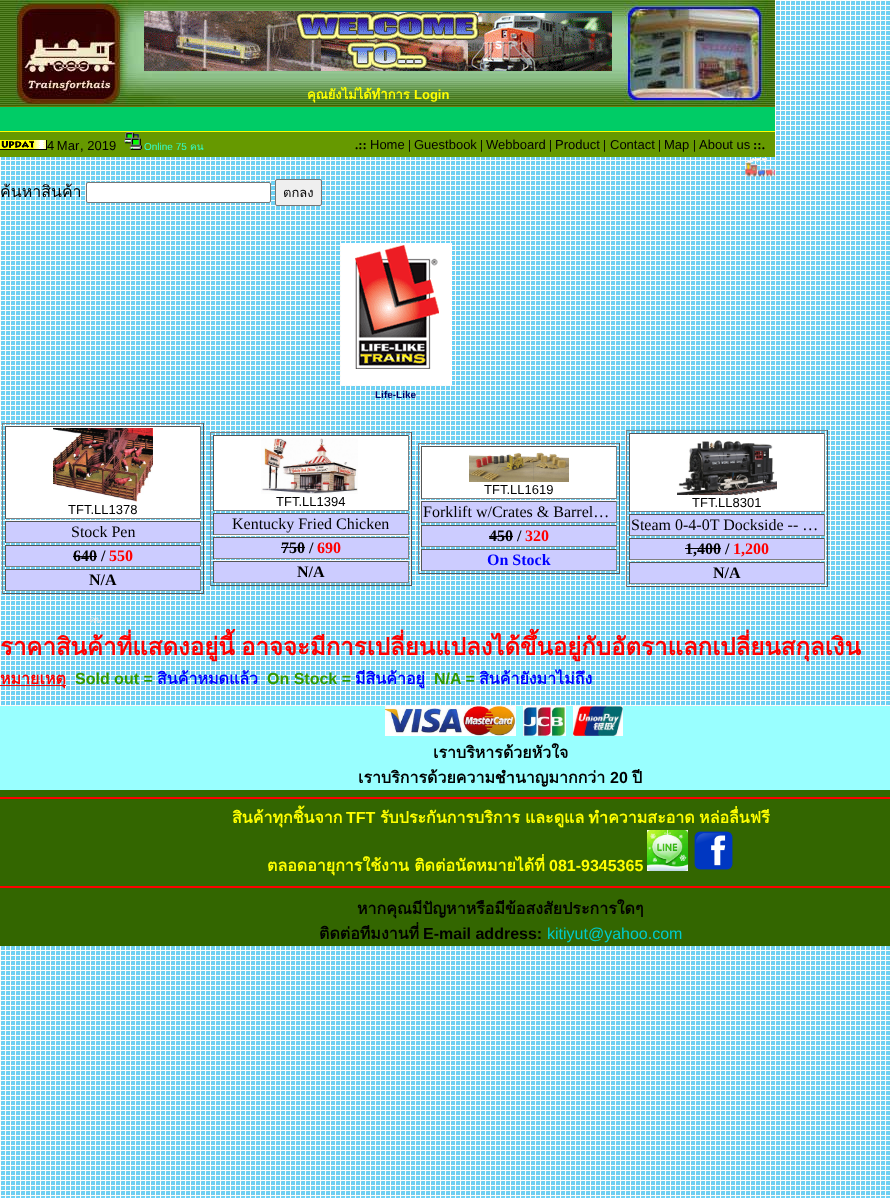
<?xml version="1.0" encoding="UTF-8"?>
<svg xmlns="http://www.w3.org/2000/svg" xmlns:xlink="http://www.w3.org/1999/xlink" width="890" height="1198">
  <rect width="100%" height="100%" fill="#ffffff" />
  <image x="0" y="0" width="890" height="1198" xlink:href="image1.png" />
  <image x="0" y="0" width="775" height="107" xlink:href="image2.png" />
  <image x="144" y="11" width="468" height="60" xlink:href="image3.png" />
  <rect y="107" width="775" height="24" fill="#00cc66" />
  <rect y="131" width="775" height="1" fill="#ffff00" />
  <rect y="132" width="775" height="25" fill="#669900" />
  <image x="0" y="140" width="47" height="10" xlink:href="image4.png" />
  <image x="124" y="132" width="18" height="18" xlink:href="image5.png" />
  <image x="745" y="158" width="30" height="19" xlink:href="image6.png" />
  <rect x="86.5" y="182.5" width="184" height="20" rx="1.5" fill="#ffffff" stroke="#767676" />
  <rect x="275.5" y="179.5" width="46" height="26" rx="1.5" fill="#efefef" stroke="#767676" />
  <image x="341" y="243" width="111" height="142" xlink:href="image7.png" />
  <rect x="2" y="423" width="202" height="1" fill="#808080" />
  <rect x="203" y="423" width="1" height="171" fill="#555555" />
  <rect x="2" y="593" width="202" height="1" fill="#555555" />
  <rect x="2" y="423" width="1" height="171" fill="#808080" />
  <rect x="6" y="427" width="194" height="91" fill="#ffffff" />
  <rect x="5" y="426" width="196" height="1" fill="#555555" />
  <rect x="200" y="426" width="1" height="93" fill="#808080" />
  <rect x="5" y="518" width="196" height="1" fill="#808080" />
  <rect x="5" y="426" width="1" height="93" fill="#555555" />
  <image x="53" y="428" width="100" height="74" xlink:href="image8.png" />
  <rect x="6" y="522" width="194" height="20" fill="#ccccff" />
  <rect x="5" y="521" width="196" height="1" fill="#555555" />
  <rect x="200" y="521" width="1" height="22" fill="#808080" />
  <rect x="5" y="542" width="196" height="1" fill="#808080" />
  <rect x="5" y="521" width="1" height="22" fill="#555555" />
  <rect x="6" y="546" width="194" height="20" fill="#ccccff" />
  <rect x="5" y="545" width="196" height="1" fill="#555555" />
  <rect x="200" y="545" width="1" height="22" fill="#808080" />
  <rect x="5" y="566" width="196" height="1" fill="#808080" />
  <rect x="5" y="545" width="1" height="22" fill="#555555" />
  <rect x="73" y="556" width="24" height="1" fill="#000000" />
  <rect x="6" y="570" width="194" height="20" fill="#ccccff" />
  <rect x="5" y="569" width="196" height="1" fill="#555555" />
  <rect x="200" y="569" width="1" height="22" fill="#808080" />
  <rect x="5" y="590" width="196" height="1" fill="#808080" />
  <rect x="5" y="569" width="1" height="22" fill="#555555" />
  <rect x="210" y="432" width="202" height="1" fill="#808080" />
  <rect x="411" y="432" width="1" height="154" fill="#555555" />
  <rect x="210" y="585" width="202" height="1" fill="#555555" />
  <rect x="210" y="432" width="1" height="154" fill="#808080" />
  <rect x="214" y="436" width="194" height="74" fill="#ffffff" />
  <rect x="213" y="435" width="196" height="1" fill="#555555" />
  <rect x="408" y="435" width="1" height="76" fill="#808080" />
  <rect x="213" y="510" width="196" height="1" fill="#808080" />
  <rect x="213" y="435" width="1" height="76" fill="#555555" />
  <image x="261" y="438" width="97" height="56" xlink:href="image9.png" />
  <rect x="214" y="514" width="194" height="20" fill="#ccccff" />
  <rect x="213" y="513" width="196" height="1" fill="#555555" />
  <rect x="408" y="513" width="1" height="22" fill="#808080" />
  <rect x="213" y="534" width="196" height="1" fill="#808080" />
  <rect x="213" y="513" width="1" height="22" fill="#555555" />
  <rect x="214" y="538" width="194" height="20" fill="#ccccff" />
  <rect x="213" y="537" width="196" height="1" fill="#555555" />
  <rect x="408" y="537" width="1" height="22" fill="#808080" />
  <rect x="213" y="558" width="196" height="1" fill="#808080" />
  <rect x="213" y="537" width="1" height="22" fill="#555555" />
  <rect x="281" y="547" width="24" height="1" fill="#000000" />
  <rect x="214" y="562" width="194" height="20" fill="#ccccff" />
  <rect x="213" y="561" width="196" height="1" fill="#555555" />
  <rect x="408" y="561" width="1" height="22" fill="#808080" />
  <rect x="213" y="582" width="196" height="1" fill="#808080" />
  <rect x="213" y="561" width="1" height="22" fill="#555555" />
  <rect x="418" y="443" width="202" height="1" fill="#808080" />
  <rect x="619" y="443" width="1" height="131" fill="#555555" />
  <rect x="418" y="573" width="202" height="1" fill="#555555" />
  <rect x="418" y="443" width="1" height="131" fill="#808080" />
  <rect x="422" y="447" width="194" height="51" fill="#ffffff" />
  <rect x="421" y="446" width="196" height="1" fill="#555555" />
  <rect x="616" y="446" width="1" height="53" fill="#808080" />
  <rect x="421" y="498" width="196" height="1" fill="#808080" />
  <rect x="421" y="446" width="1" height="53" fill="#555555" />
  <image x="469" y="452" width="100" height="30" xlink:href="image10.png" />
  <rect x="422" y="502" width="194" height="20" fill="#ccccff" />
  <rect x="421" y="501" width="196" height="1" fill="#555555" />
  <rect x="616" y="501" width="1" height="22" fill="#808080" />
  <rect x="421" y="522" width="196" height="1" fill="#808080" />
  <rect x="421" y="501" width="1" height="22" fill="#555555" />
  <rect x="422" y="526" width="194" height="20" fill="#ccccff" />
  <rect x="421" y="525" width="196" height="1" fill="#555555" />
  <rect x="616" y="525" width="1" height="22" fill="#808080" />
  <rect x="421" y="546" width="196" height="1" fill="#808080" />
  <rect x="421" y="525" width="1" height="22" fill="#555555" />
  <rect x="489" y="536" width="24" height="1" fill="#000000" />
  <rect x="422" y="550" width="194" height="20" fill="#ccccff" />
  <rect x="421" y="549" width="196" height="1" fill="#555555" />
  <rect x="616" y="549" width="1" height="22" fill="#808080" />
  <rect x="421" y="570" width="196" height="1" fill="#808080" />
  <rect x="421" y="549" width="1" height="22" fill="#555555" />
  <rect x="626" y="430" width="202" height="1" fill="#808080" />
  <rect x="827" y="430" width="1" height="157" fill="#555555" />
  <rect x="626" y="586" width="202" height="1" fill="#555555" />
  <rect x="626" y="430" width="1" height="157" fill="#808080" />
  <rect x="630" y="434" width="194" height="77" fill="#ffffff" />
  <rect x="629" y="433" width="196" height="1" fill="#555555" />
  <rect x="824" y="433" width="1" height="79" fill="#808080" />
  <rect x="629" y="511" width="196" height="1" fill="#808080" />
  <rect x="629" y="433" width="1" height="79" fill="#555555" />
  <image x="677" y="440" width="100" height="55" xlink:href="image11.png" />
  <rect x="630" y="515" width="194" height="20" fill="#ccccff" />
  <rect x="629" y="514" width="196" height="1" fill="#555555" />
  <rect x="824" y="514" width="1" height="22" fill="#808080" />
  <rect x="629" y="535" width="196" height="1" fill="#808080" />
  <rect x="629" y="514" width="1" height="22" fill="#555555" />
  <rect x="630" y="539" width="194" height="20" fill="#ccccff" />
  <rect x="629" y="538" width="196" height="1" fill="#555555" />
  <rect x="824" y="538" width="1" height="22" fill="#808080" />
  <rect x="629" y="559" width="196" height="1" fill="#808080" />
  <rect x="629" y="538" width="1" height="22" fill="#555555" />
  <rect x="685" y="548" width="36" height="1" fill="#000000" />
  <rect x="630" y="563" width="194" height="20" fill="#ccccff" />
  <rect x="629" y="562" width="196" height="1" fill="#555555" />
  <rect x="824" y="562" width="1" height="22" fill="#808080" />
  <rect x="629" y="583" width="196" height="1" fill="#808080" />
  <rect x="629" y="562" width="1" height="22" fill="#555555" />
  <rect y="685" width="66" height="1" fill="#ff0000" />
  <rect y="706" width="890" height="84" fill="#99ffff" />
  <image x="385" y="706" width="131" height="30" xlink:href="image12.png" />
  <image x="523" y="706" width="43" height="30" xlink:href="image13.png" />
  <image x="573" y="706" width="50" height="30" xlink:href="image14.png" />
  <rect y="790" width="890" height="156" fill="#336600" />
  <rect y="797" width="890" height="2" fill="#ff0000" />
  <image x="647" y="830" width="41" height="41" xlink:href="image15.png" />
  <image x="694" y="831" width="39" height="39" xlink:href="image16.png" />
  <rect y="886" width="890" height="2" fill="#ff0000" />
  <text x="307" y="99" style="font-family: Loma; font-size: 13px; font-weight: bold; fill: #ffff00">คุณยังไม่ได้ทำการ</text>
  <text x="414" y="99" style="font-family: Liberation Sans; font-size: 13px; font-weight: bold; fill: #ffff00">Login</text>
  <text x="47" y="150" word-spacing="-1" style="font-family: Liberation Sans; font-size: 13px; fill: #000000">4 Mar</text>
  <text x="80" y="150" style="font-family: Liberation Sans; font-size: 13px; fill: #000000">, 2019</text>
  <text x="144" y="150" style="font-family: Liberation Sans; font-size: 10px; fill: #33ffcc">Online 75</text>
  <text x="190" y="150" style="font-family: Loma; font-size: 10px; fill: #33ffcc">คน</text>
  <text x="355" y="149" style="font-family: Liberation Serif; font-size: 13px; font-weight: bold; fill: #000000">.::</text>
  <text x="370" y="149" style="font-family: Liberation Sans; font-size: 13px; fill: #000000">Home</text>
  <text x="408" y="149" style="font-family: Liberation Serif; font-size: 13px; font-weight: bold; fill: #000000">|</text>
  <text x="414" y="149" style="font-family: Liberation Sans; font-size: 13px; fill: #000000">Guestbook</text>
  <text x="480" y="149" style="font-family: Liberation Serif; font-size: 13px; font-weight: bold; fill: #000000">|</text>
  <text x="486" y="149" style="font-family: Liberation Sans; font-size: 13px; fill: #000000">Webboard</text>
  <text x="549" y="149" style="font-family: Liberation Serif; font-size: 13px; font-weight: bold; fill: #000000">|</text>
  <text x="555" y="149" style="font-family: Liberation Sans; font-size: 13px; fill: #000000">Product</text>
  <text x="603" y="149" style="font-family: Liberation Serif; font-size: 13px; font-weight: bold; fill: #000000">|</text>
  <text x="610" y="149" style="font-family: Liberation Sans; font-size: 13px; fill: #000000">Contact</text>
  <text x="658" y="149" style="font-family: Liberation Serif; font-size: 13px; font-weight: bold; fill: #000000">|</text>
  <text x="664" y="149" style="font-family: Liberation Sans; font-size: 13px; fill: #000000">Map</text>
  <text x="693" y="149" style="font-family: Liberation Serif; font-size: 13px; font-weight: bold; fill: #000000">|</text>
  <text x="699" y="149" style="font-family: Liberation Sans; font-size: 13px; fill: #000000">About us</text>
  <text x="753" y="149" style="font-family: Liberation Serif; font-size: 13px; font-weight: bold; fill: #000000">::.</text>
  <text x="0" y="197" style="font-family: Loma; font-size: 16px; fill: #000000">ค้นหาสินค้า</text>
  <text x="283" y="197" style="font-family: Loma; font-size: 13px; fill: #000000">ตกลง</text>
  <text x="375" y="398" style="font-family: Liberation Sans; font-size: 10px; font-weight: bold; fill: #000066">Life-Like</text>
  <text x="68" y="514" style="font-family: Liberation Sans; font-size: 13px; fill: #000000">TFT.LL1378</text>
  <text x="71" y="537" style="font-family: Liberation Serif; font-size: 16px; fill: #000000">Stock Pen</text>
  <text x="73" y="561" style="font-family: Liberation Serif; font-size: 16px; font-weight: bold; fill: #000000">640 /</text>
  <text x="109" y="561" style="font-family: Liberation Serif; font-size: 16px; font-weight: bold; fill: #ff0000">550</text>
  <text x="89" y="585" style="font-family: Liberation Serif; font-size: 16px; font-weight: bold; fill: #000000">N/A</text>
  <text x="276" y="506" style="font-family: Liberation Sans; font-size: 13px; fill: #000000">TFT.LL1394</text>
  <text x="232" y="529" style="font-family: Liberation Serif; font-size: 16px; fill: #000000">Kentucky Fried Chicken</text>
  <text x="281" y="553" style="font-family: Liberation Serif; font-size: 16px; font-weight: bold; fill: #000000">750 /</text>
  <text x="317" y="553" style="font-family: Liberation Serif; font-size: 16px; font-weight: bold; fill: #ff0000">690</text>
  <text x="297" y="577" style="font-family: Liberation Serif; font-size: 16px; font-weight: bold; fill: #000000">N/A</text>
  <text x="484" y="494" style="font-family: Liberation Sans; font-size: 13px; fill: #000000">TFT.LL1619</text>
  <text x="423" y="517" style="font-family: Liberation Serif; font-size: 16px; fill: #000000">Forklift w/Crates &amp; Barrel…</text>
  <text x="489" y="541" style="font-family: Liberation Serif; font-size: 16px; font-weight: bold; fill: #000000">450 /</text>
  <text x="525" y="541" style="font-family: Liberation Serif; font-size: 16px; font-weight: bold; fill: #ff0000">320</text>
  <text x="487" y="565" style="font-family: Liberation Serif; font-size: 16px; font-weight: bold; fill: #0000ff">On Stock</text>
  <text x="692" y="507" style="font-family: Liberation Sans; font-size: 13px; fill: #000000">TFT.LL8301</text>
  <text x="631" y="530" style="font-family: Liberation Serif; font-size: 16px; fill: #000000">Steam 0-4-0T Dockside -- …</text>
  <text x="685" y="554" style="font-family: Liberation Serif; font-size: 16px; font-weight: bold; fill: #000000">1,400 /</text>
  <text x="733" y="554" style="font-family: Liberation Serif; font-size: 16px; font-weight: bold; fill: #ff0000">1,200</text>
  <text x="713" y="578" style="font-family: Liberation Serif; font-size: 16px; font-weight: bold; fill: #000000">N/A</text>
  <text x="89" y="623" style="font-family: Loma; font-size: 10px; fill: #e8e8e8">คน</text>
  <text x="0" y="655" style="font-family: Loma; font-size: 24px; font-weight: bold; fill: #ff0000">ราคาสินค้าที่แสดงอยู่นี้</text>
  <text x="241" y="655" style="font-family: Loma; font-size: 24px; font-weight: bold; fill: #ff0000">อาจจะมีการเปลี่ยนแปลงได้ขึ้นอยู่กับอัตราแลกเปลี่ยนสกุลเงิน</text>
  <text x="0" y="684" style="font-family: Loma; font-size: 16px; font-weight: bold; fill: #ff0000">หมายเหตุ</text>
  <text x="75" y="684" style="font-family: Liberation Sans; font-size: 16px; font-weight: bold; fill: #339900">Sold out =</text>
  <text x="157" y="684" style="font-family: Loma; font-size: 16px; font-weight: bold; fill: #0000ff">สินค้าหมดแล้ว</text>
  <text x="267" y="684" style="font-family: Liberation Sans; font-size: 16px; font-weight: bold; fill: #339900">On Stock =</text>
  <text x="355" y="684" style="font-family: Loma; font-size: 16px; font-weight: bold; fill: #0000ff">มีสินค้าอยู่</text>
  <text x="434" y="684" style="font-family: Liberation Sans; font-size: 16px; font-weight: bold; fill: #339900">N/A =</text>
  <text x="479" y="684" style="font-family: Loma; font-size: 16px; font-weight: bold; fill: #0000ff">สินค้ายังมาไม่ถึง</text>
  <text x="433" y="758" style="font-family: Loma; font-size: 16px; font-weight: bold; fill: #000000">เราบริหารด้วยหัวใจ</text>
  <text x="358" y="783" style="font-family: Loma; font-size: 16px; font-weight: bold; fill: #000000">เราบริการด้วยความชำนาญมากกว่า</text>
  <text x="610" y="783" style="font-family: Liberation Sans; font-size: 16px; font-weight: bold; fill: #000000">20</text>
  <text x="632" y="783" style="font-family: Loma; font-size: 16px; font-weight: bold; fill: #000000">ปี</text>
  <text x="232" y="823" style="font-family: Loma; font-size: 16px; font-weight: bold; fill: #ffff00">สินค้าทุกชิ้นจาก</text>
  <text x="346" y="823" style="font-family: Liberation Sans; font-size: 16px; font-weight: bold; fill: #ffff00">TFT</text>
  <text x="380" y="823" style="font-family: Loma; font-size: 16px; font-weight: bold; fill: #ffff00">รับประกันการบริการ</text>
  <text x="525" y="823" word-spacing="-1" style="font-family: Loma; font-size: 16px; font-weight: bold; fill: #ffff00">และดูแล ทำความสะอาด หล่อลื่นฟรี</text>
  <text x="267" y="871" style="font-family: Loma; font-size: 16px; font-weight: bold; fill: #ffff00">ตลอดอายุการใช้งาน ติดต่อนัดหมายได้ที่</text>
  <text x="549" y="871" style="font-family: Liberation Sans; font-size: 16px; font-weight: bold; fill: #ffff00">081-9345365</text>
  <text x="357" y="914" style="font-family: Loma; font-size: 16px; font-weight: bold; fill: #000000">หากคุณมีปัญหาหรือมีข้อสงสัยประการใดๆ</text>
  <text x="319" y="939" style="font-family: Loma; font-size: 16px; font-weight: bold; fill: #000000">ติดต่อทีมงานที่</text>
  <text x="423" y="939" style="font-family: Liberation Sans; font-size: 16px; font-weight: bold; fill: #000000">E-mail address:</text>
  <text x="547" y="939" style="font-family: Liberation Sans; font-size: 16px; fill: #00cccc">kitiyut@yahoo.com</text>
</svg>
